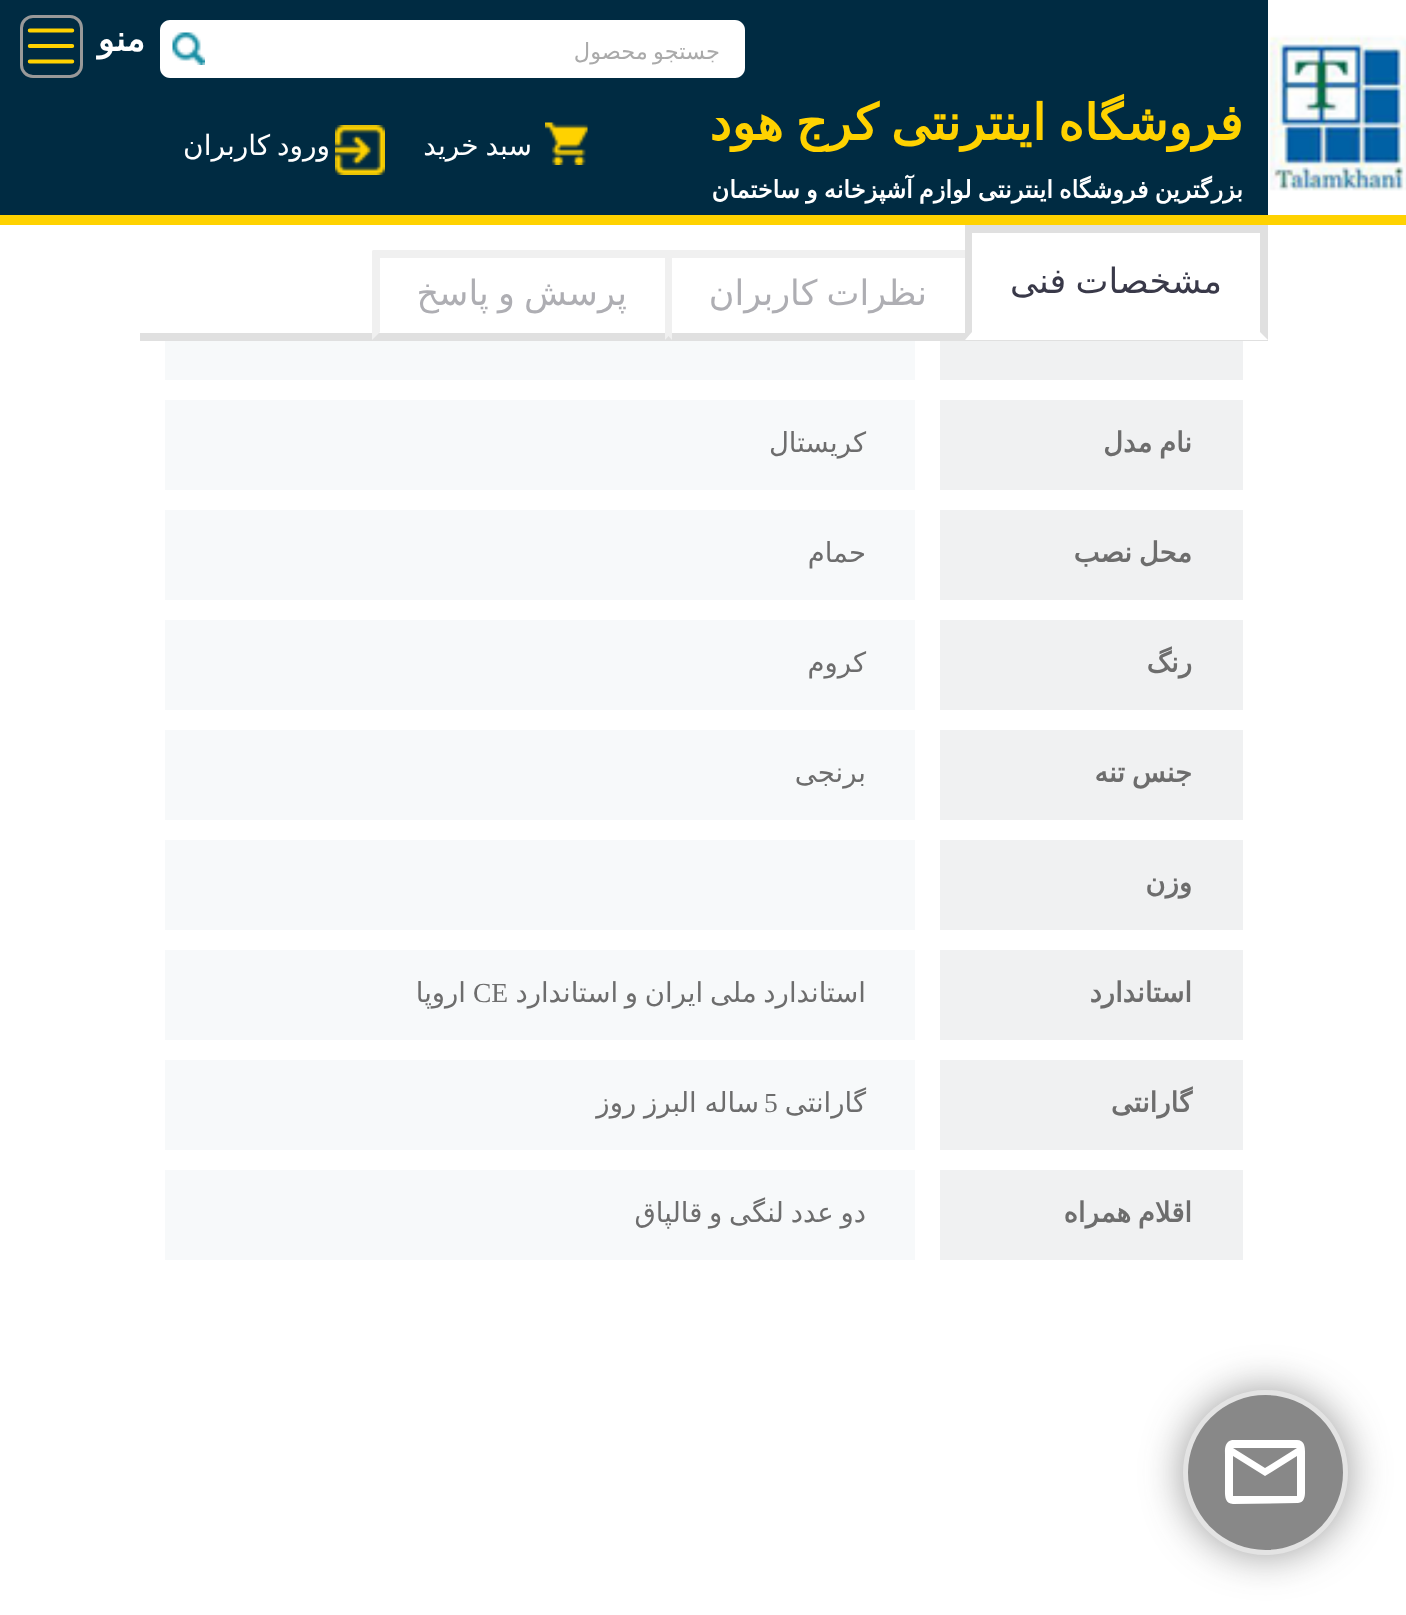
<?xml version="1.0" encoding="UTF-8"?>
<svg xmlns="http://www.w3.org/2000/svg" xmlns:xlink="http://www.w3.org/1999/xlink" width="1406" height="1615">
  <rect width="100%" height="100%" fill="#ffffff" />
  <rect width="1268" height="215" fill="#002b42" />
  <rect y="215" width="1406" height="10" fill="#ffd200" />
  <image x="1269" y="35" width="137" height="156" xlink:href="image1.png" />
  <path d="M 205 20 h 530 c 5.5 0 10 4.5 10 10 v 38 c 0 5.5 -4.5 10 -10 10 h -530 z" fill="#ffffff" />
  <path d="M 170 20 h 35 v 58 h -35 c -5.5 0 -10 -4.5 -10 -10 v -38 c 0 -5.5 4.5 -10 10 -10 z" fill="#ffffff" />
  <image x="172" y="32" width="33" height="33" xlink:href="image2.png" />
  <image x="545" y="122" width="43" height="43" xlink:href="image3.png" />
  <image x="335" y="125" width="50" height="50" xlink:href="image4.png" />
  <image x="27" y="28" width="48" height="36" xlink:href="image5.png" />
  <rect x="21.5" y="16.5" width="60" height="60" rx="11.5" fill="none" stroke="#999999" stroke-width="3" />
  <rect x="140" y="333" width="1128" height="8" fill="#e0e0e0" />
  <rect x="665" y="250" width="308" height="8" fill="#f0f0f0" />
  <rect x="965" y="250" width="303" height="90" fill="#ffffff" />
  <rect x="965" y="225" width="303" height="8" fill="#e0e0e0" />
  <path d="M 1268 225 v 115 l -8 -8 v -100 z" fill="#e0e0e0" />
  <path d="M 965 340 v -115 l 7 7 v 100 z" fill="#e0e0e0" />
  <path d="M 665 340 v -90 l 7 8 v 74 z" fill="#f0f0f0" />
  <rect x="373" y="250" width="300" height="8" fill="#f0f0f0" />
  <path d="M 672 250 v 90 l -7 -8 v -74 z" fill="#f0f0f0" />
  <path d="M 372 340 v -90 l 8 8 v 74 z" fill="#f0f0f0" />
  <rect x="940" y="341" width="303" height="39" fill="#f0f1f2" />
  <rect x="165" y="341" width="750" height="39" fill="#f7f9fa" />
  <rect x="940" y="400" width="303" height="90" fill="#f0f1f2" />
  <rect x="165" y="400" width="750" height="90" fill="#f7f9fa" />
  <rect x="940" y="510" width="303" height="90" fill="#f0f1f2" />
  <rect x="165" y="510" width="750" height="90" fill="#f7f9fa" />
  <rect x="940" y="620" width="303" height="90" fill="#f0f1f2" />
  <rect x="165" y="620" width="750" height="90" fill="#f7f9fa" />
  <rect x="940" y="730" width="303" height="90" fill="#f0f1f2" />
  <rect x="165" y="730" width="750" height="90" fill="#f7f9fa" />
  <rect x="940" y="840" width="303" height="90" fill="#f0f1f2" />
  <rect x="165" y="840" width="750" height="90" fill="#f7f9fa" />
  <rect x="940" y="950" width="303" height="90" fill="#f0f1f2" />
  <rect x="165" y="950" width="750" height="90" fill="#f7f9fa" />
  <rect x="940" y="1060" width="303" height="90" fill="#f0f1f2" />
  <rect x="165" y="1060" width="750" height="90" fill="#f7f9fa" />
  <rect x="940" y="1170" width="303" height="90" fill="#f0f1f2" />
  <rect x="165" y="1170" width="750" height="90" fill="#f7f9fa" />
  <rect x="1183" y="1390" width="165" height="165" rx="82.5" fill="#323232" fill-opacity="0.5" filter="blur(21px)" />
  <circle cx="1265.5" cy="1472.5" r="80" fill="#888888" stroke="#e3e3e3" stroke-width="5" />
  <path d="M 1297 1440 c 9 0 8 10 8 16 v 32 c 0 5 1 14 -7 15 l -65 1 c -9 0 -8 -10 -8 -16 v -32 c 0 -6 -1 -14 7 -16 z m 0 56 v -40 l -32 20 l -32 -20 v 40 z m -32 -28 l 32 -20 h -64 z" fill="#ffffff" />
  <text x="1243" y="140" word-spacing="-3.5" style="font-family: DejaVu Sans; font-size: 49.6px; font-weight: bold; direction: rtl; fill: #ffd200">فروشگاه اینترنتی کرج هود</text>
  <text x="1243" y="198" word-spacing="-1.5" style="font-family: DejaVu Sans; font-size: 24px; font-weight: bold; direction: rtl; fill: #ffffff">بزرگترین فروشگاه اینترنتی لوازم آشپزخانه و ساختمان</text>
  <text x="720" y="59" word-spacing="-2" style="font-family: DejaVu Sans; font-size: 22.5px; direction: rtl; fill: #aaaaaa">جستجو محصول</text>
  <text x="532" y="155" word-spacing="-2" style="font-family: DejaVu Sans; font-size: 28px; direction: rtl; fill: #ffffff">سبد خرید</text>
  <text x="330" y="155" word-spacing="-2" style="font-family: DejaVu Sans; font-size: 28px; direction: rtl; fill: #ffffff">ورود کاربران</text>
  <text x="145" y="51" style="font-family: DejaVu Sans; font-size: 35px; font-weight: bold; direction: rtl; fill: #ffffff">منو</text>
  <text x="1222" y="293" word-spacing="-2" style="font-family: DejaVu Sans; font-size: 35px; direction: rtl; fill: #393949">مشخصات فنی</text>
  <text x="927" y="305" word-spacing="-2" style="font-family: DejaVu Sans; font-size: 35px; direction: rtl; fill: #aeaeb3">نظرات کاربران</text>
  <text x="627" y="305" word-spacing="-2" style="font-family: DejaVu Sans; font-size: 35px; direction: rtl; fill: #aeaeb3">پرسش و پاسخ</text>
  <text x="1192" y="452" word-spacing="-2" style="font-family: DejaVu Sans; font-size: 27.5px; font-weight: bold; direction: rtl; fill: #6d6d6d">نام مدل</text>
  <text x="866" y="452" style="font-family: DejaVu Sans; font-size: 27.5px; direction: rtl; fill: #6d6d6d">کریستال</text>
  <text x="1192" y="562" word-spacing="-2" style="font-family: DejaVu Sans; font-size: 27.5px; font-weight: bold; direction: rtl; fill: #6d6d6d">محل نصب</text>
  <text x="866" y="562" style="font-family: DejaVu Sans; font-size: 27.5px; direction: rtl; fill: #6d6d6d">حمام</text>
  <text x="1192" y="672" style="font-family: DejaVu Sans; font-size: 27.5px; font-weight: bold; direction: rtl; fill: #6d6d6d">رنگ</text>
  <text x="866" y="672" style="font-family: DejaVu Sans; font-size: 27.5px; direction: rtl; fill: #6d6d6d">کروم</text>
  <text x="1192" y="782" word-spacing="-2" style="font-family: DejaVu Sans; font-size: 27.5px; font-weight: bold; direction: rtl; fill: #6d6d6d">جنس تنه</text>
  <text x="866" y="782" style="font-family: DejaVu Sans; font-size: 27.5px; direction: rtl; fill: #6d6d6d">برنجی</text>
  <text x="1192" y="892" style="font-family: DejaVu Sans; font-size: 27.5px; font-weight: bold; direction: rtl; fill: #6d6d6d">وزن</text>
  <text x="1192" y="1002" style="font-family: DejaVu Sans; font-size: 27.5px; font-weight: bold; direction: rtl; fill: #6d6d6d">استاندارد</text>
  <text x="866" y="1002" word-spacing="-2" style="font-family: DejaVu Sans; font-size: 27.5px; direction: rtl; fill: #6d6d6d">استاندارد ملی ایران و استاندارد</text>
  <text x="473" y="1002" style="font-family: Liberation Serif; font-size: 27.5px; fill: #6d6d6d">CE</text>
  <text x="466" y="1002" style="font-family: DejaVu Sans; font-size: 27.5px; direction: rtl; fill: #6d6d6d">اروپا</text>
  <text x="1192" y="1112" style="font-family: DejaVu Sans; font-size: 27.5px; font-weight: bold; direction: rtl; fill: #6d6d6d">گارانتی</text>
  <text x="866" y="1112" style="font-family: DejaVu Sans; font-size: 27.5px; direction: rtl; fill: #6d6d6d">گارانتی</text>
  <text x="764" y="1112" style="font-family: Liberation Serif; font-size: 27.5px; fill: #6d6d6d">5</text>
  <text x="759" y="1112" word-spacing="-1" style="font-family: DejaVu Sans; font-size: 27.5px; direction: rtl; fill: #6d6d6d">ساله البرز روز</text>
  <text x="1192" y="1222" word-spacing="-2" style="font-family: DejaVu Sans; font-size: 27.5px; font-weight: bold; direction: rtl; fill: #6d6d6d">اقلام همراه</text>
  <text x="866" y="1222" word-spacing="-2" style="font-family: DejaVu Sans; font-size: 27.5px; direction: rtl; fill: #6d6d6d">دو عدد لنگی و قالپاق</text>
</svg>
